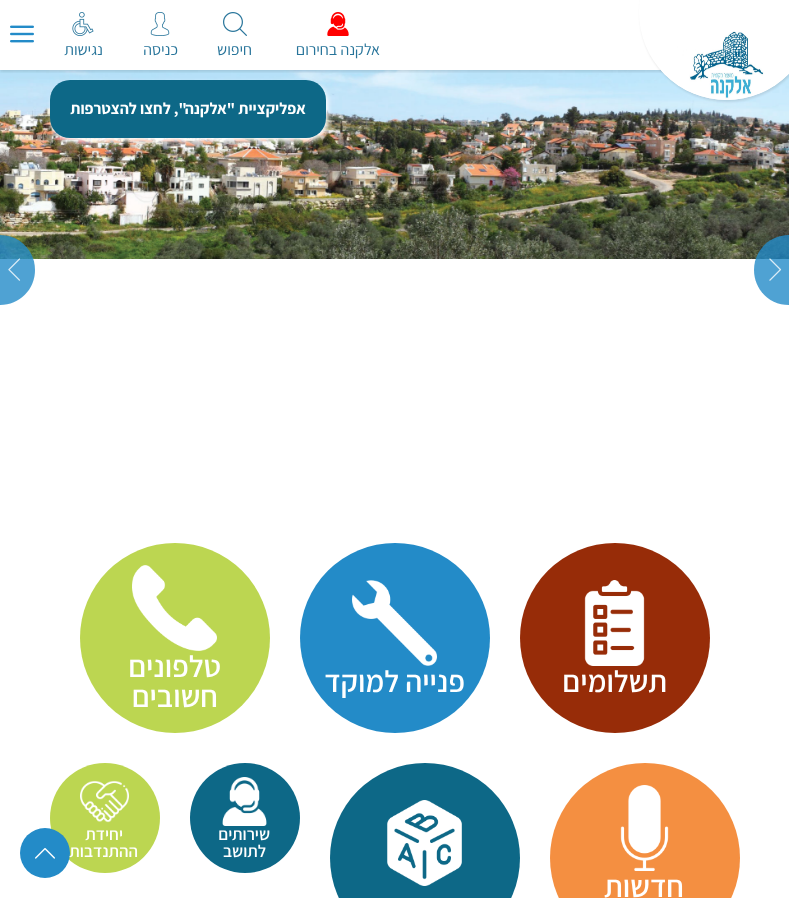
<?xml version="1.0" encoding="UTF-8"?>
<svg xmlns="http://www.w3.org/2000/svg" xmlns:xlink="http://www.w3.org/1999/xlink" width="789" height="898">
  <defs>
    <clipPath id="clip1"><rect x="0" y="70" width="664" height="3" /></clipPath>
  </defs>
  <rect width="100%" height="100%" fill="#ffffff" />
  <image x="0" y="70" width="789" height="189" xlink:href="image7.png" />
  <g clip-path="url(#clip1)">
    <rect y="2" width="789" height="70" fill="#000000" fill-opacity="0.1" filter="blur(1px)" />
  </g>
  <rect x="640" y="-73" width="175" height="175" rx="87.5" fill="#000000" fill-opacity="0.1" filter="blur(1px)" />
  <circle cx="726.5" cy="12.5" r="87.5" fill="#ffffff" />
  <image x="661" y="31" width="128" height="69" xlink:href="image1.png" />
  <image x="10" y="25" width="24" height="18" xlink:href="image2.png" />
  <image x="327" y="12" width="22" height="24" xlink:href="image3.png" />
  <image x="223" y="12" width="24" height="24" xlink:href="image4.png" />
  <image x="150" y="12" width="20" height="24" xlink:href="image5.png" />
  <image x="72" y="12" width="22" height="24" xlink:href="image6.png" />
  <rect x="52" y="83" width="276" height="58" rx="20" fill="#ffffff" filter="blur(2.5px)" />
  <rect x="50" y="80" width="276" height="58" rx="20" fill="#0d6887" />
  <path d="M 789 235 v 70 c -19.5 0 -35 -15.5 -35 -35 c 0 -19.5 15.5 -35 35 -35 z" fill="#238bc8" fill-opacity="0.8" />
  <image x="769" y="258" width="13" height="23" xlink:href="image8.png" />
  <path d="M 0 235 c 19.5 0 35 15.5 35 35 c 0 19.5 -15.5 35 -35 35 z" fill="#238bc8" fill-opacity="0.8" />
  <image x="8" y="258" width="13" height="23" xlink:href="image9.png" />
  <circle cx="615" cy="638" r="95" fill="#972c08" />
  <image x="584" y="580" width="61" height="86" xlink:href="image10.png" />
  <circle cx="395" cy="638" r="95" fill="#238bc8" />
  <image x="352" y="580" width="85" height="86" xlink:href="image11.png" />
  <circle cx="175" cy="638" r="95" fill="#bcd651" />
  <image x="132" y="565" width="85" height="86" xlink:href="image12.png" />
  <circle cx="425" cy="858" r="95" fill="#0d6887" />
  <image x="387" y="800" width="75" height="86" xlink:href="image13.png" />
  <circle cx="245" cy="818" r="55" fill="#0d6887" />
  <image x="222" y="777" width="45" height="49" xlink:href="image14.png" />
  <circle cx="105" cy="818" r="55" fill="#bcd651" />
  <image x="80" y="780" width="49" height="43" xlink:href="image15.png" />
  <circle cx="645" cy="858" r="95" fill="#f48f41" />
  <image x="620" y="785" width="49" height="86" xlink:href="image16.png" />
  <circle cx="45" cy="853" r="25" fill="#238bc8" />
  <image x="35" y="848" width="20" height="11" xlink:href="image17.png" />
  <text x="380" y="55" style="font-family: Assistant; font-size: 16px; direction: rtl; fill: #27749a">אלקנה בחירום</text>
  <text x="252" y="55" style="font-family: Assistant; font-size: 16px; direction: rtl; fill: #27749a">חיפוש</text>
  <text x="178" y="55" style="font-family: Assistant; font-size: 16px; direction: rtl; fill: #27749a">כניסה</text>
  <text x="103" y="55" style="font-family: Assistant; font-size: 16px; direction: rtl; fill: #27749a">נגישות</text>
  <text x="306" y="114" style="font-family: Assistant; font-size: 16px; font-weight: bold; direction: rtl; fill: #ffffff">אפליקציית "אלקנה", לחצו להצטרפות</text>
  <text x="667" y="692" style="font-family: Assistant; font-size: 30.5px; font-weight: 600; direction: rtl; fill: #ffffff">תשלומים</text>
  <text x="465" y="692" style="font-family: Assistant; font-size: 30.5px; font-weight: 600; direction: rtl; fill: #ffffff">פנייה למוקד</text>
  <text x="221" y="677" style="font-family: Assistant; font-size: 30.5px; font-weight: 600; direction: rtl; fill: #ffffff">טלפונים</text>
  <text x="218" y="707" style="font-family: Assistant; font-size: 30.5px; font-weight: 600; direction: rtl; fill: #ffffff">חשובים</text>
  <text x="270" y="840" style="font-family: Assistant; font-size: 17px; font-weight: 600; direction: rtl; fill: #ffffff">שירותים</text>
  <text x="266" y="857" style="font-family: Assistant; font-size: 17px; font-weight: 600; direction: rtl; fill: #ffffff">לתושב</text>
  <text x="123" y="840" style="font-family: Assistant; font-size: 17px; font-weight: 600; direction: rtl; fill: #ffffff">יחידת</text>
  <text x="138" y="857" style="font-family: Assistant; font-size: 17px; font-weight: 600; direction: rtl; fill: #ffffff">ההתנדבות</text>
  <text x="684" y="897" style="font-family: Assistant; font-size: 30.5px; font-weight: 600; direction: rtl; fill: #ffffff">חדשות</text>
</svg>
